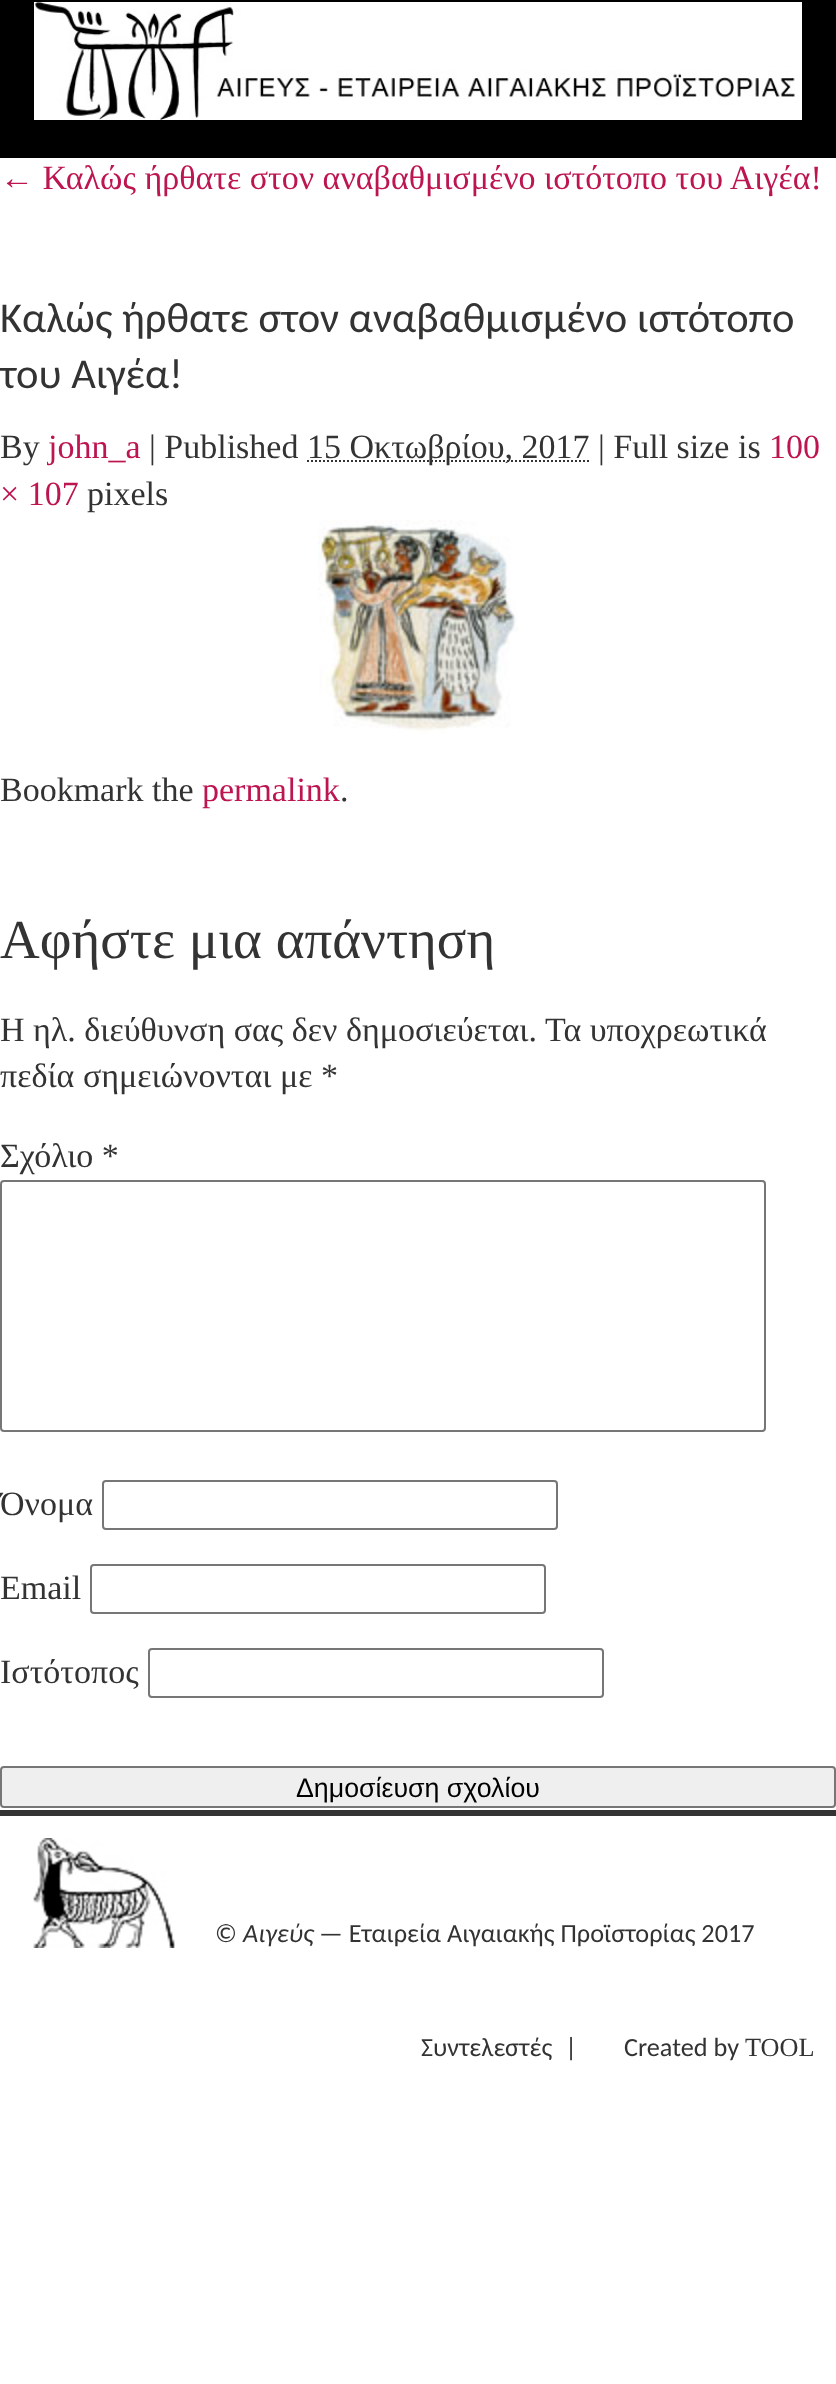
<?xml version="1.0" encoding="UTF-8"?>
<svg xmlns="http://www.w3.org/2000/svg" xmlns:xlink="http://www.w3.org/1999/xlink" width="836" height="2384">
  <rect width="100%" height="100%" fill="#ffffff" />
  <rect width="836" height="158" fill="#000000" />
  <image x="34" y="2" width="768" height="118" xlink:href="image1.png" />
  <path d="M 307 461 h 282.5" fill="none" stroke="#333333" stroke-width="2" stroke-dasharray="2 2" />
  <image x="318" y="520" width="200" height="214" xlink:href="image2.png" />
  <rect x="1" y="1181" width="764" height="250" rx="3" fill="none" stroke="#767676" stroke-width="2" />
  <rect x="103" y="1481" width="454" height="48" rx="3" fill="none" stroke="#767676" stroke-width="2" />
  <rect x="91" y="1565" width="454" height="48" rx="3" fill="none" stroke="#767676" stroke-width="2" />
  <rect x="149" y="1649" width="454" height="48" rx="3" fill="none" stroke="#767676" stroke-width="2" />
  <rect x="1" y="1767" width="834" height="40" rx="3" fill="#efefef" stroke="#767676" stroke-width="2" />
  <rect y="1810" width="836" height="6" fill="#333333" />
  <image x="33" y="1838" width="142" height="110" xlink:href="image3.png" />
  <text x="0" y="189" style="font-family: Liberation Serif; font-size: 34px; fill: #bd1550">← Καλώς ήρθατε στον αναβαθμισμένο ιστότοπο του Αιγέα!</text>
  <text x="0" y="332" style="font-family: Carlito; font-size: 42.5px; fill: #333333">Καλώς ήρθατε στον αναβαθμισμένο ιστότοπο</text>
  <text x="0" y="388" style="font-family: Carlito; font-size: 42.5px; fill: #333333">του Αιγέα!</text>
  <text x="0" y="458" style="font-family: Liberation Serif; font-size: 34px; fill: #333333">By</text>
  <text x="48" y="458" style="font-family: Liberation Serif; font-size: 34px; fill: #bd1550">john_a</text>
  <text x="149" y="458" style="font-family: Liberation Serif; font-size: 34px; fill: #333333">| Published</text>
  <text x="307" y="458" style="font-family: Liberation Serif; font-size: 34px; fill: #333333">15 Οκτωβρίου, 2017 | Full size is</text>
  <text x="769" y="458" style="font-family: Liberation Serif; font-size: 34px; fill: #bd1550">100</text>
  <text x="0" y="505" style="font-family: Liberation Serif; font-size: 34px; fill: #bd1550">× 107</text>
  <text x="87" y="505" style="font-family: Liberation Serif; font-size: 34px; fill: #333333">pixels</text>
  <text x="0" y="801" style="font-family: Liberation Serif; font-size: 34px; fill: #333333">Bookmark the</text>
  <text x="202" y="801" style="font-family: Liberation Serif; font-size: 34px; fill: #bd1550">permalink</text>
  <text x="340" y="801" style="font-family: Liberation Serif; font-size: 34px; fill: #333333">.</text>
  <text x="0" y="958" style="font-family: Liberation Serif; font-size: 55px; fill: #333333">Αφήστε μια απάντηση</text>
  <text x="0" y="1041" style="font-family: Liberation Serif; font-size: 34px; fill: #333333">Η ηλ. διεύθυνση σας δεν δημοσιεύεται.</text>
  <text x="545" y="1041" style="font-family: Liberation Serif; font-size: 34px; fill: #333333">Τα υποχρεωτικά</text>
  <text x="0" y="1087" style="font-family: Liberation Serif; font-size: 34px; fill: #333333">πεδία σημειώνονται με *</text>
  <text x="0" y="1167" style="font-family: Liberation Serif; font-size: 34px; fill: #333333">Σχόλιο *</text>
  <text x="0" y="1515" style="font-family: Liberation Serif; font-size: 34px; fill: #333333">Όνομα</text>
  <text x="0" y="1599" style="font-family: Liberation Serif; font-size: 34px; fill: #333333">Email</text>
  <text x="0" y="1683" style="font-family: Liberation Serif; font-size: 34px; fill: #333333">Ιστότοπος</text>
  <text x="296" y="1797" style="font-family: Liberation Sans; font-size: 26.75px; fill: #000000">Δημοσίευση σχολίου</text>
  <text x="215" y="1942" style="font-family: Carlito; font-size: 26.25px; fill: #333333">©</text>
  <text x="243" y="1942" style="font-family: Carlito; font-size: 26.25px; font-style: italic; fill: #333333">Αιγεύς</text>
  <text x="319" y="1942" style="font-family: Carlito; font-size: 26.25px; fill: #333333">— Εταιρεία Αιγαιακής Προϊστορίας 2017</text>
  <text x="421" y="2056" style="font-family: Carlito; font-size: 26.25px; fill: #333333">Συντελεστές</text>
  <text x="565" y="2056" style="font-family: Carlito; font-size: 26.25px; fill: #333333">|</text>
  <text x="624" y="2056" style="font-family: Carlito; font-size: 26.25px; fill: #333333">Created by</text>
  <text x="745" y="2056" style="font-family: Liberation Serif; font-size: 26.25px; fill: #333333">TOOL</text>
</svg>
